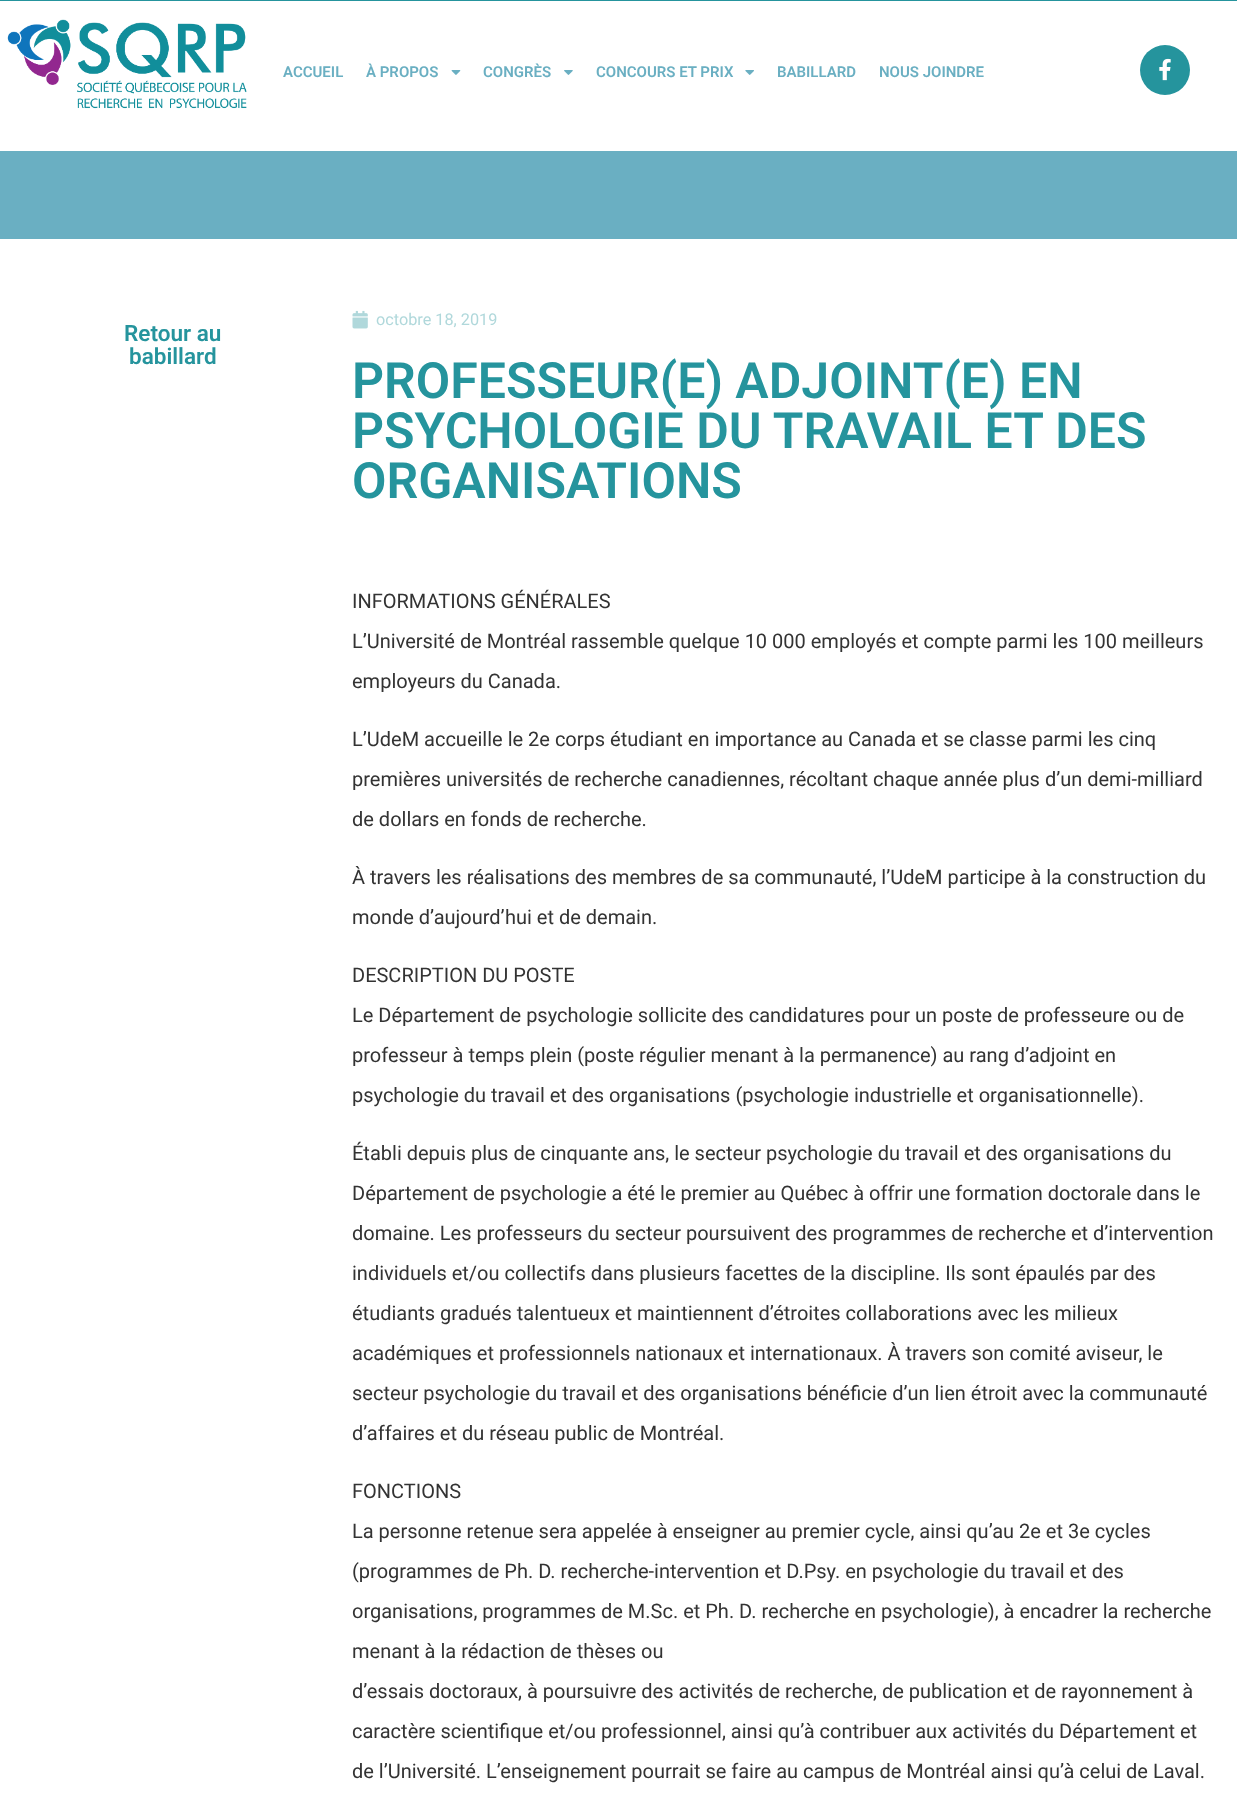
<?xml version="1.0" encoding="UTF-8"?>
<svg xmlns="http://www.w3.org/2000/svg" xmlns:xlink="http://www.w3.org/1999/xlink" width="1237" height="1794">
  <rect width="100%" height="100%" fill="#ffffff" />
  <rect width="1237" height="1" fill="#25949d" />
  <image x="7" y="19" width="240" height="90" xlink:href="image1.png" />
  <image x="451" y="70" width="10" height="5" xlink:href="image2.png" />
  <image x="564" y="70" width="9" height="5" xlink:href="image3.png" />
  <image x="745" y="70" width="9" height="5" xlink:href="image4.png" />
  <circle cx="1165" cy="70" r="25" fill="#25949d" />
  <image x="1159" y="58" width="12" height="23" xlink:href="image5.png" />
  <rect y="151" width="1237" height="88" fill="#6aafc2" />
  <image x="352" y="310" width="16" height="19" xlink:href="image6.png" />
  <text x="283" y="77" style="font-family: Roboto; font-size: 15px; font-weight: 600; fill: #6aafc2">ACCUEIL</text>
  <text x="366" y="77" style="font-family: Roboto; font-size: 15px; font-weight: 600; fill: #6aafc2">À PROPOS</text>
  <text x="483" y="77" style="font-family: Roboto; font-size: 15px; font-weight: 600; fill: #6aafc2">CONGRÈS</text>
  <text x="596" y="77" style="font-family: Roboto; font-size: 15px; font-weight: 600; fill: #6aafc2">CONCOURS ET PRIX</text>
  <text x="777" y="77" style="font-family: Roboto; font-size: 15px; font-weight: 600; fill: #6aafc2">BABILLARD</text>
  <text x="879" y="77" style="font-family: Roboto; font-size: 15px; font-weight: 600; fill: #6aafc2">NOUS JOINDRE</text>
  <text x="124" y="341" style="font-family: Roboto; font-size: 22.5px; font-weight: 600; fill: #25949d">Retour au</text>
  <text x="129" y="364" style="font-family: Roboto; font-size: 22.5px; font-weight: 600; fill: #25949d">babillard</text>
  <text x="376" y="325" style="font-family: Roboto; font-size: 16.25px; fill: #b0d8db">octobre 18, 2019</text>
  <text x="352" y="398" style="font-family: Roboto; font-size: 50px; font-weight: 600; fill: #25949d">PROFESSEUR(E) ADJOINT(E) EN</text>
  <text x="352" y="448" style="font-family: Roboto; font-size: 50px; font-weight: 600; fill: #25949d">PSYCHOLOGIE DU TRAVAIL ET DES</text>
  <text x="352" y="498" style="font-family: Roboto; font-size: 50px; font-weight: 600; fill: #25949d">ORGANISATIONS</text>
  <text x="352" y="608" style="font-family: Roboto; font-size: 20px; fill: #333333">INFORMATIONS GÉNÉRALES</text>
  <text x="352" y="648" style="font-family: Roboto; font-size: 20px; fill: #333333">L’Université de Montréal rassemble quelque 10 000 employés et compte parmi les 100 meilleurs</text>
  <text x="352" y="688" style="font-family: Roboto; font-size: 20px; fill: #333333">employeurs du Canada.</text>
  <text x="352" y="746" style="font-family: Roboto; font-size: 20px; fill: #333333">L’UdeM accueille le 2e corps étudiant en importance au Canada et se classe parmi les cinq</text>
  <text x="352" y="786" style="font-family: Roboto; font-size: 20px; fill: #333333">premières universités de recherche canadiennes, récoltant chaque année plus d’un demi-milliard</text>
  <text x="352" y="826" style="font-family: Roboto; font-size: 20px; fill: #333333">de dollars en fonds de recherche.</text>
  <text x="352" y="884" style="font-family: Roboto; font-size: 20px; fill: #333333">À travers les réalisations des membres de sa communauté, l’UdeM participe à la construction du</text>
  <text x="352" y="924" style="font-family: Roboto; font-size: 20px; fill: #333333">monde d’aujourd’hui et de demain.</text>
  <text x="352" y="982" style="font-family: Roboto; font-size: 20px; fill: #333333">DESCRIPTION DU POSTE</text>
  <text x="352" y="1022" style="font-family: Roboto; font-size: 20px; fill: #333333">Le Département de psychologie sollicite des candidatures pour un poste de professeure ou de</text>
  <text x="352" y="1062" style="font-family: Roboto; font-size: 20px; fill: #333333">professeur à temps plein (poste régulier menant à la permanence) au rang d’adjoint en</text>
  <text x="352" y="1102" style="font-family: Roboto; font-size: 20px; fill: #333333">psychologie du travail et des organisations (psychologie industrielle et organisationnelle).</text>
  <text x="352" y="1160" style="font-family: Roboto; font-size: 20px; fill: #333333">Établi depuis plus de cinquante ans, le secteur psychologie du travail et des organisations du</text>
  <text x="352" y="1200" style="font-family: Roboto; font-size: 20px; fill: #333333">Département de psychologie a été le premier au Québec à offrir une formation doctorale dans le</text>
  <text x="352" y="1240" style="font-family: Roboto; font-size: 20px; fill: #333333">domaine. Les professeurs du secteur poursuivent des programmes de recherche et d’intervention</text>
  <text x="352" y="1280" style="font-family: Roboto; font-size: 20px; fill: #333333">individuels et/ou collectifs dans plusieurs facettes de la discipline. Ils sont épaulés par des</text>
  <text x="352" y="1320" style="font-family: Roboto; font-size: 20px; fill: #333333">étudiants gradués talentueux et maintiennent d’étroites collaborations avec les milieux</text>
  <text x="352" y="1360" style="font-family: Roboto; font-size: 20px; fill: #333333">académiques et professionnels nationaux et internationaux. À travers son comité aviseur, le</text>
  <text x="352" y="1400" style="font-family: Roboto; font-size: 20px; fill: #333333">secteur psychologie du travail et des organisations bénéficie d’un lien étroit avec la communauté</text>
  <text x="352" y="1440" style="font-family: Roboto; font-size: 20px; fill: #333333">d’affaires et du réseau public de Montréal.</text>
  <text x="352" y="1498" style="font-family: Roboto; font-size: 20px; fill: #333333">FONCTIONS</text>
  <text x="352" y="1538" style="font-family: Roboto; font-size: 20px; fill: #333333">La personne retenue sera appelée à enseigner au premier cycle, ainsi qu’au 2e et 3e cycles</text>
  <text x="352" y="1578" style="font-family: Roboto; font-size: 20px; fill: #333333">(programmes de Ph. D. recherche-intervention et D.Psy. en psychologie du travail et des</text>
  <text x="352" y="1618" style="font-family: Roboto; font-size: 20px; fill: #333333">organisations, programmes de M.Sc. et Ph. D. recherche en psychologie), à encadrer la recherche</text>
  <text x="352" y="1658" style="font-family: Roboto; font-size: 20px; fill: #333333">menant à la rédaction de thèses ou</text>
  <text x="352" y="1698" style="font-family: Roboto; font-size: 20px; fill: #333333">d’essais doctoraux, à poursuivre des activités de recherche, de publication et de rayonnement à</text>
  <text x="352" y="1738" style="font-family: Roboto; font-size: 20px; fill: #333333">caractère scientifique et/ou professionnel, ainsi qu’à contribuer aux activités du Département et</text>
  <text x="352" y="1778" style="font-family: Roboto; font-size: 20px; fill: #333333">de l’Université. L’enseignement pourrait se faire au campus de Montréal ainsi qu’à celui de Laval.</text>
</svg>
